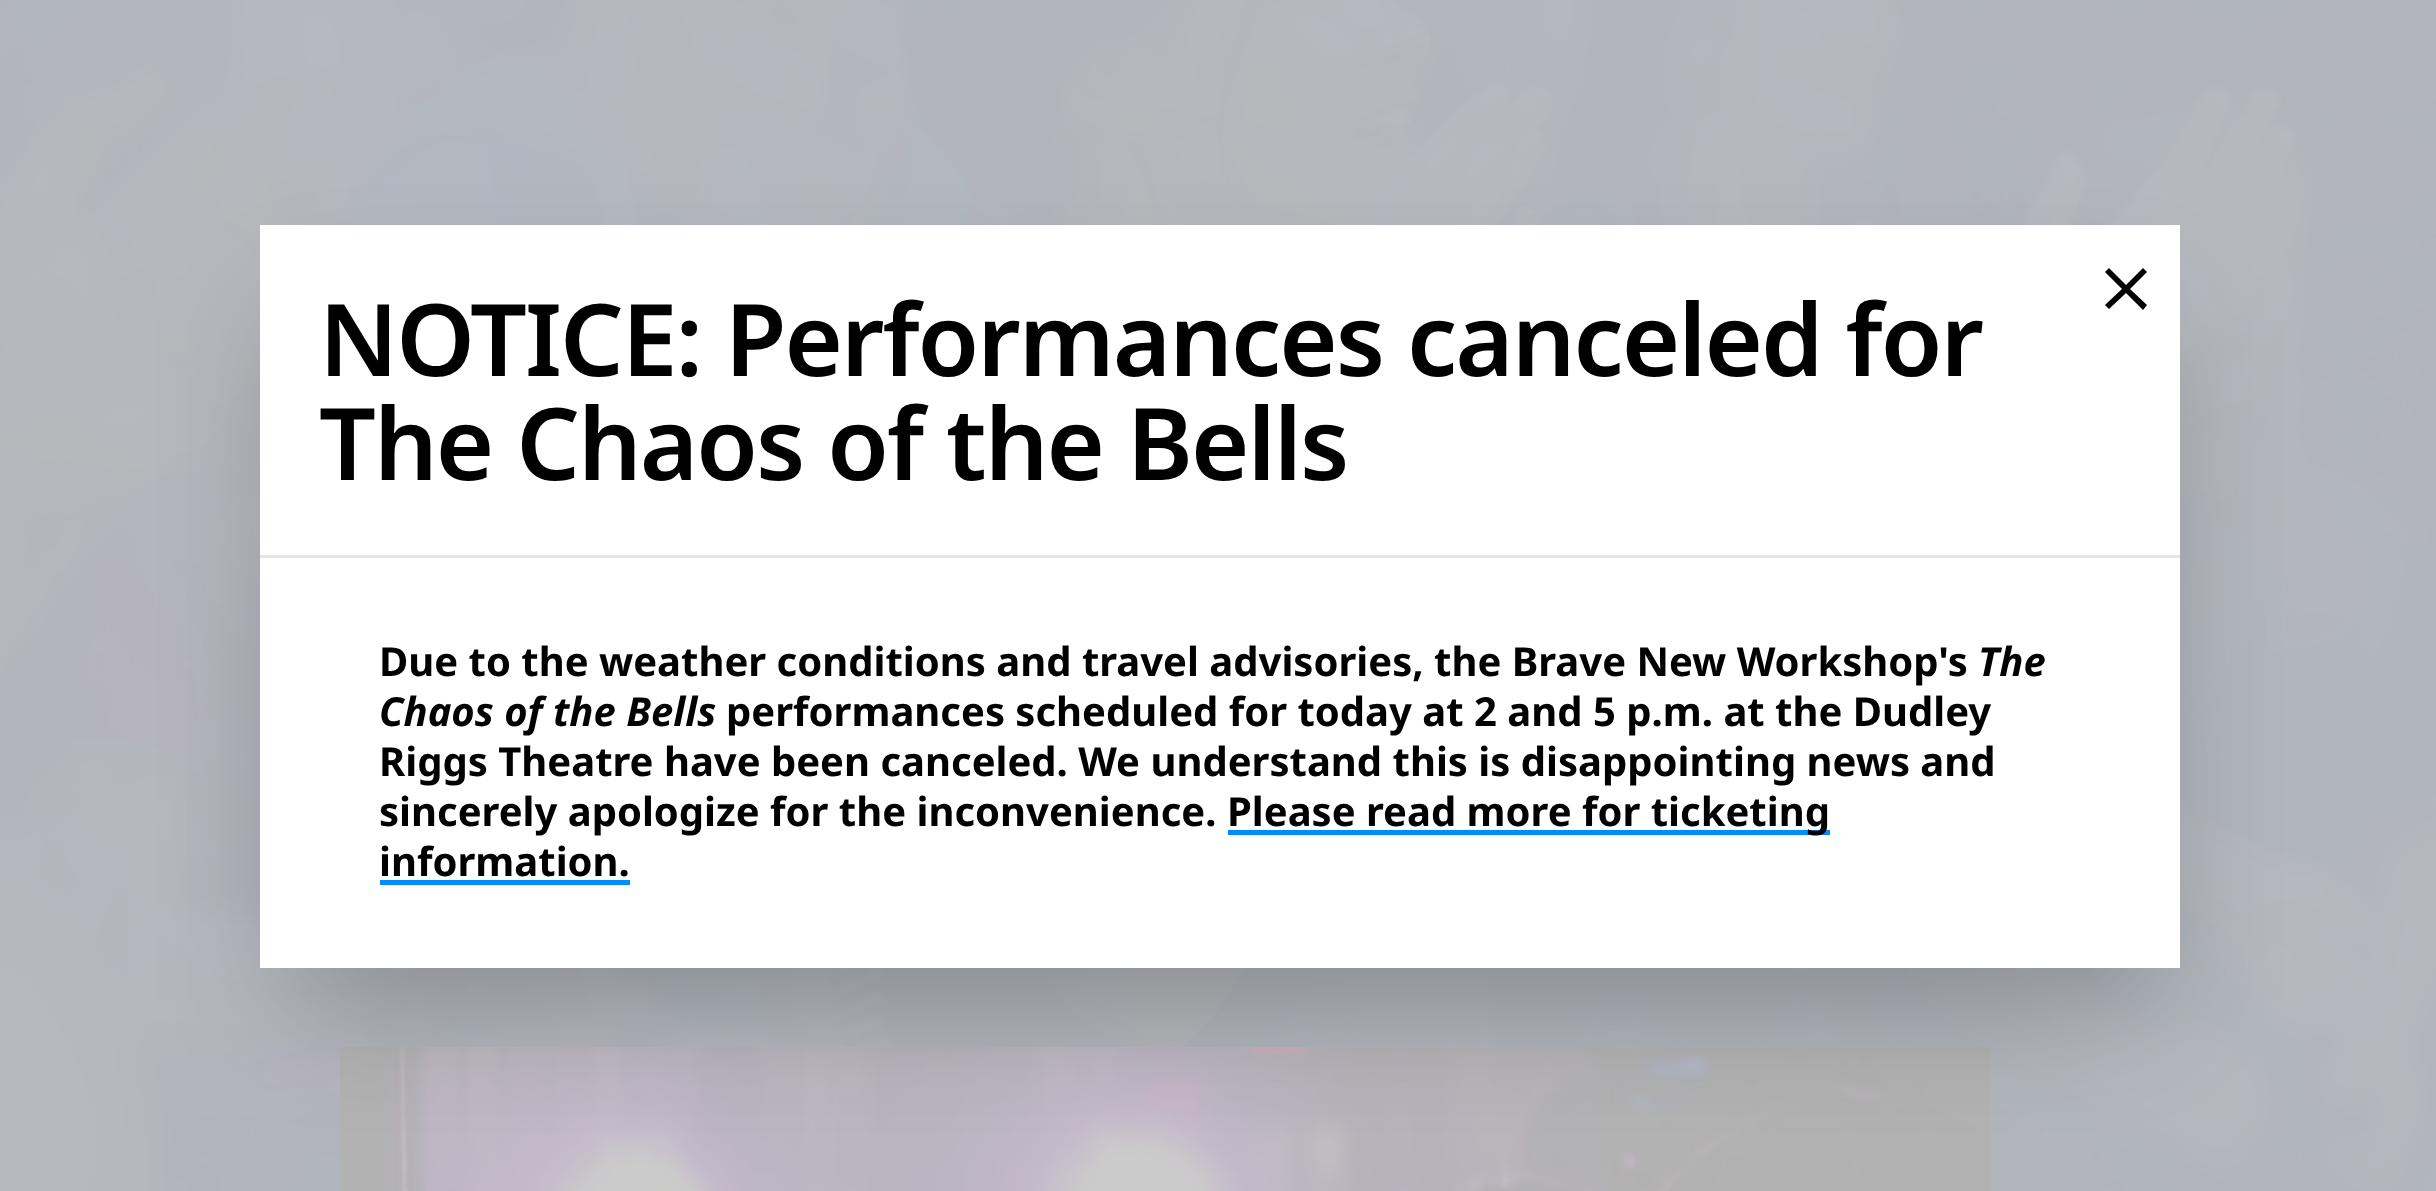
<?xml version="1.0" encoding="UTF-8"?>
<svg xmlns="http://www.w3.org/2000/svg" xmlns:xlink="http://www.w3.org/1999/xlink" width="2436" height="1191">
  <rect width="100%" height="100%" fill="#b1b6be" />
  <image x="0" y="0" width="2436" height="1191" xlink:href="image1.png" />
  <image x="340" y="1047" width="1650" height="144" xlink:href="image2.png" />
  <rect x="290" y="318" width="1860" height="682" fill="#000000" fill-opacity="0.25" filter="blur(62.5px)" />
  <rect x="260" y="225" width="1920" height="743" fill="#ffffff" />
  <rect x="260" y="555" width="1920" height="3" fill="#e5e5e5" />
  <path d="M 2145 274 l 2 -2 l -4 -4 l -17 17 l -17 -17 l -4 4 l 17 17 l -17 16 l 4 4 l 17 -16 l 17 17 l 4 -5 l -17 -16 z" fill="#000000" />
  <rect x="1228" y="830" width="602" height="5" fill="#008cff" />
  <rect x="380" y="880" width="250" height="5" fill="#008cff" />
  <text x="319" y="376" style="font-family: Noto Sans; font-size: 100px; font-weight: 600; letter-spacing: -2px; fill: #000000">NOTICE: Performances canceled for</text>
  <text x="319" y="480" style="font-family: Noto Sans; font-size: 100px; font-weight: 600; letter-spacing: -2px; fill: #000000">The Chaos of the Bells</text>
  <text x="379" y="676" style="font-family: Noto Sans; font-size: 40px; font-weight: bold; fill: #000000">Due to the weather conditions and travel advisories, the Brave New Workshop's</text>
  <text x="1978" y="676" style="font-family: Noto Sans; font-size: 40px; font-weight: bold; font-style: italic; fill: #000000">The</text>
  <text x="379" y="726" style="font-family: Noto Sans; font-size: 40px; font-weight: bold; font-style: italic; fill: #000000">Chaos of the Bells</text>
  <text x="726" y="726" style="font-family: Noto Sans; font-size: 40px; font-weight: bold; fill: #000000">performances scheduled for today at 2 and 5 p.m. at the Dudley</text>
  <text x="379" y="776" style="font-family: Noto Sans; font-size: 40px; font-weight: bold; fill: #000000">Riggs Theatre have been canceled. We understand this is disappointing news and</text>
  <text x="379" y="826" style="font-family: Noto Sans; font-size: 40px; font-weight: bold; fill: #000000">sincerely apologize for the inconvenience.</text>
  <text x="1227" y="826" style="font-family: Noto Sans; font-size: 40px; font-weight: bold; fill: #000000">Please read more for ticketing</text>
  <text x="379" y="876" style="font-family: Noto Sans; font-size: 40px; font-weight: bold; fill: #000000">information.</text>
</svg>
